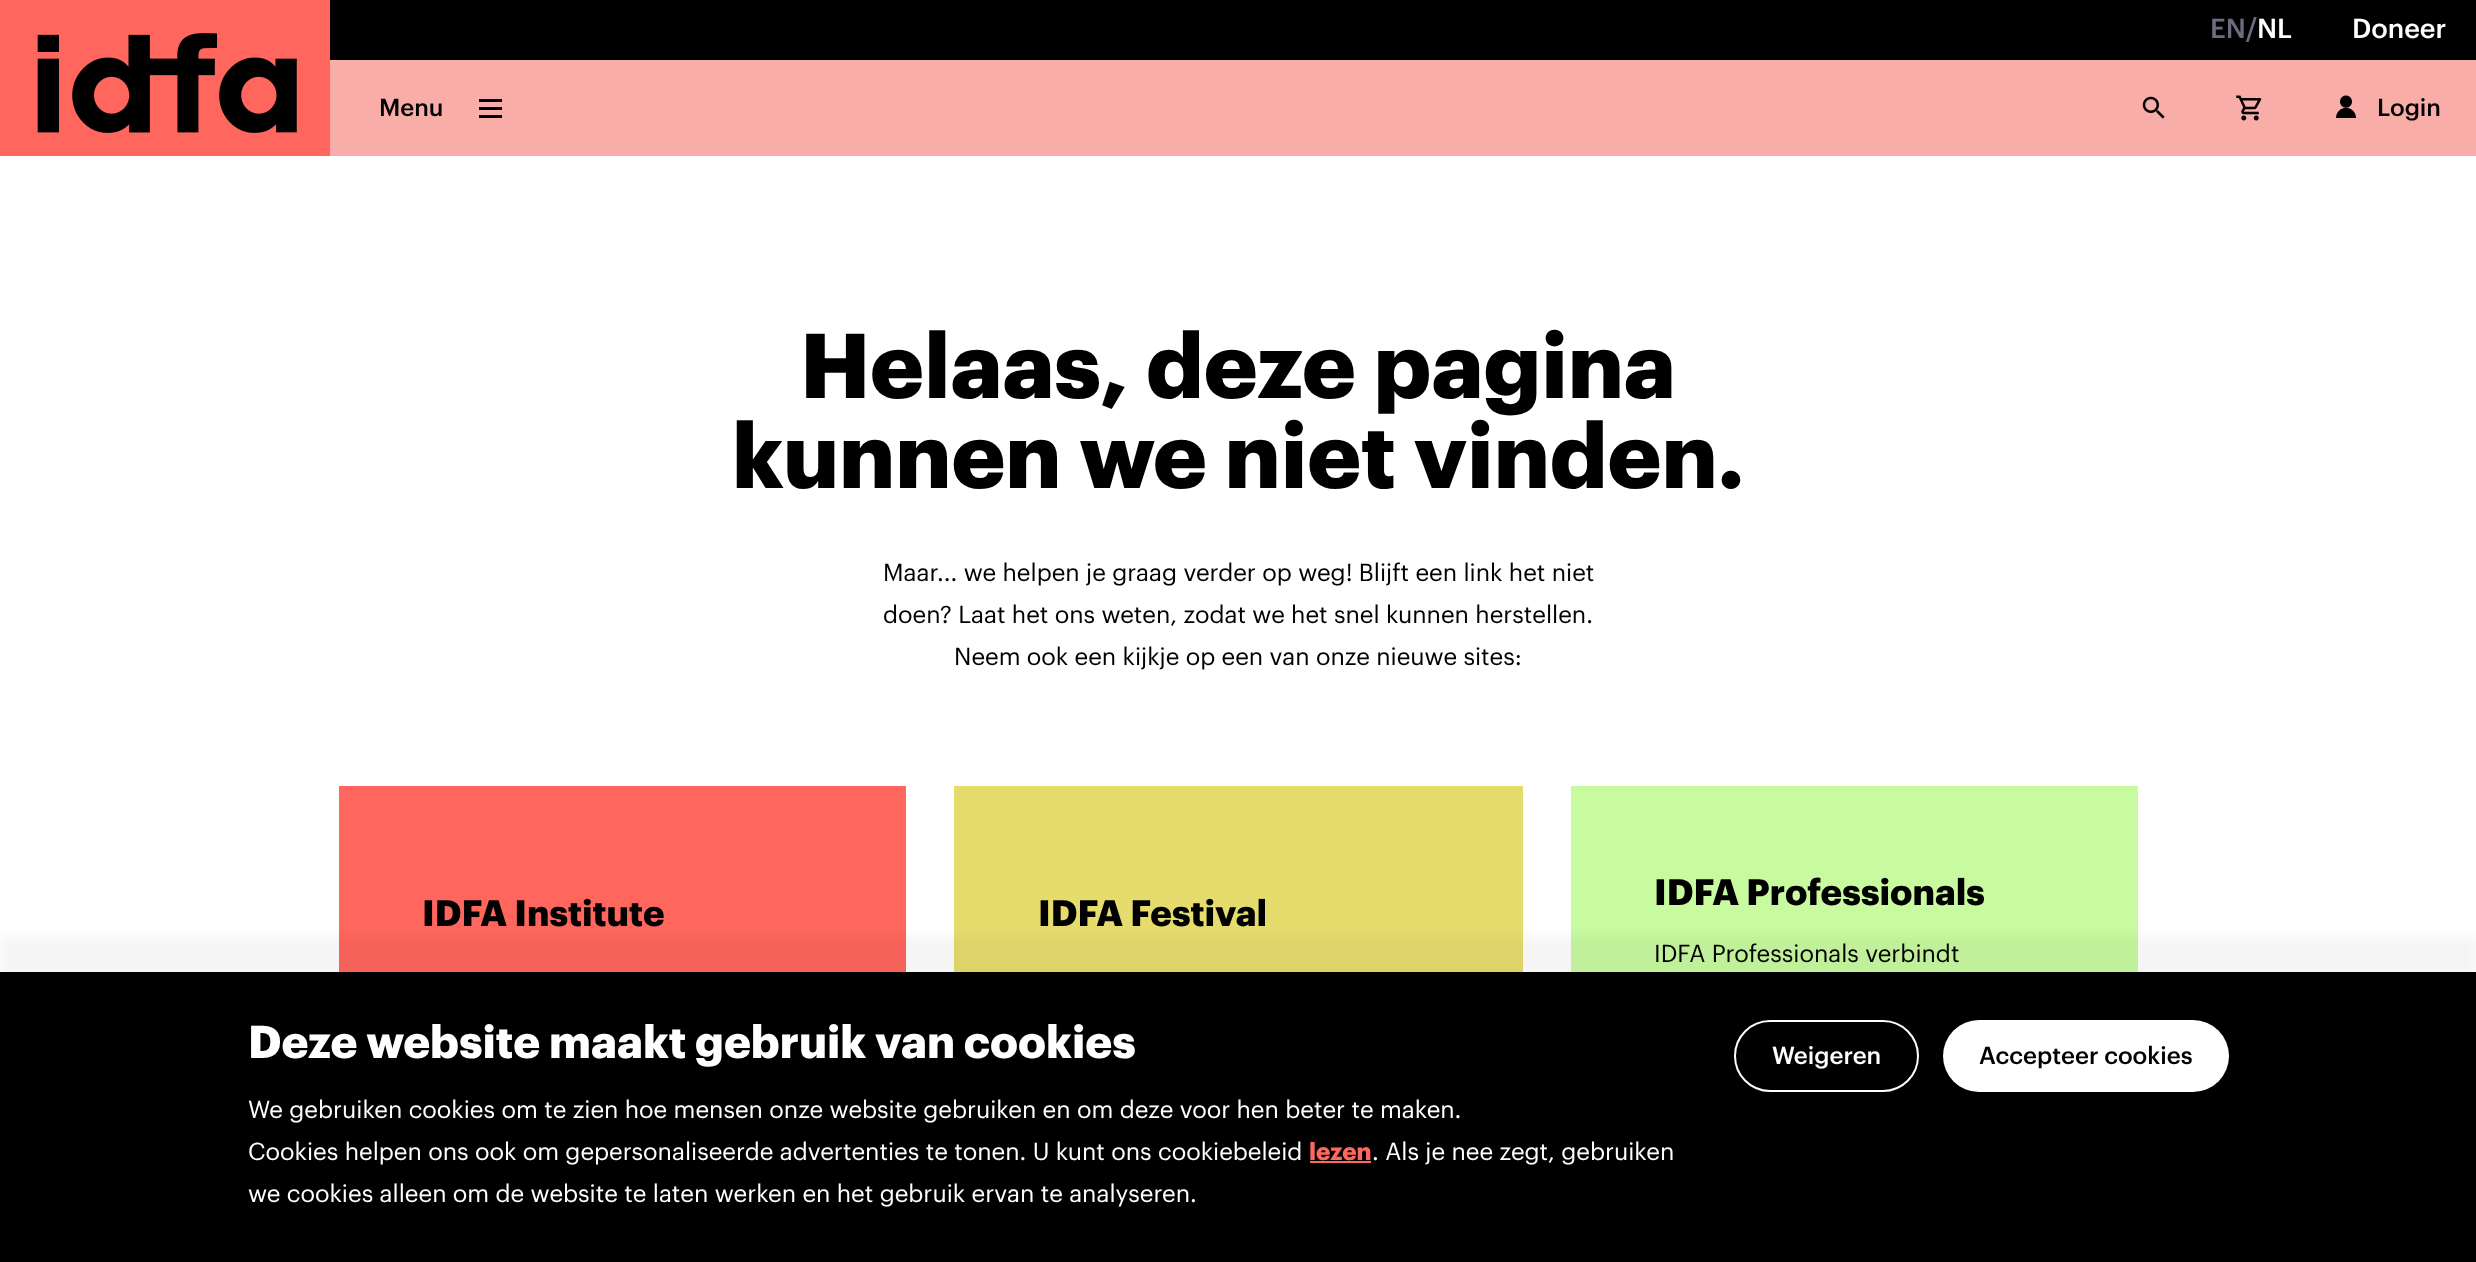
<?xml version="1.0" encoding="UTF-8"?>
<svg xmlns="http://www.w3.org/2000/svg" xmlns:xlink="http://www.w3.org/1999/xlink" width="2476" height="1262">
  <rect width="100%" height="100%" fill="#ffffff" />
  <rect width="330" height="156" fill="#ff665e" />
  <image x="37" y="33" width="260" height="100" xlink:href="image1.png" />
  <rect x="330" width="2146" height="60" fill="#000000" />
  <rect x="330" y="60" width="2146" height="96" fill="#f9ada9" />
  <rect x="479" y="99" width="23" height="3" fill="#000000" />
  <rect x="479" y="107" width="23" height="3" fill="#000000" />
  <rect x="479" y="115" width="23" height="3" fill="#000000" />
  <image x="2142" y="96" width="23" height="23" xlink:href="image2.png" />
  <image x="2236" y="95" width="26" height="26" xlink:href="image3.png" />
  <image x="2336" y="95" width="20" height="23" xlink:href="image4.png" />
  <rect x="339" y="786" width="567" height="186" fill="#ff665e" />
  <rect x="954" y="786" width="569" height="186" fill="#e6dc6e" />
  <rect x="1571" y="786" width="567" height="186" fill="#c8faa0" />
  <rect y="936" width="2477" height="291" fill="#000000" fill-opacity="0.04" filter="blur(6px)" />
  <rect y="972" width="2476" height="290" fill="#000000" />
  <rect x="1310" y="1161" width="61" height="2" fill="#ff665e" />
  <rect x="1735" y="1021" width="183" height="70" rx="35" fill="none" stroke="#ffffff" stroke-width="2" />
  <rect x="1943" y="1020" width="286" height="72" rx="36" fill="#ffffff" />
  <text x="2210" y="38" style="font-family: Graphik; font-size: 27px; font-weight: 500; fill: #6d6b82">EN/</text>
  <text x="2257" y="38" style="font-family: Graphik; font-size: 27px; font-weight: 500; fill: #ffffff">NL</text>
  <text x="2352" y="38" style="font-family: Graphik; font-size: 27px; font-weight: 500; fill: #ffffff">Doneer</text>
  <text x="379" y="116" style="font-family: Graphik; font-size: 24px; font-weight: 500; fill: #000000">Menu</text>
  <text x="2377" y="116" style="font-family: Graphik; font-size: 24px; font-weight: 500; fill: #000000">Login</text>
  <text x="800" y="398" style="font-family: Graphik; font-size: 90px; font-weight: bold; fill: #000000">Helaas, deze pagina</text>
  <text x="732" y="488" style="font-family: Graphik; font-size: 90px; font-weight: bold; fill: #000000">kunnen we niet vinden.</text>
  <text x="883" y="581" style="font-family: Graphik; font-size: 24px; fill: #000000">Maar... we helpen je graag verder op weg! Blijft een link het niet</text>
  <text x="883" y="623" style="font-family: Graphik; font-size: 24px; fill: #000000">doen? Laat het ons weten, zodat we het snel kunnen herstellen.</text>
  <text x="954" y="665" style="font-family: Graphik; font-size: 24px; fill: #000000">Neem ook een kijkje op een van onze nieuwe sites:</text>
  <text x="422" y="926" style="font-family: Graphik; font-size: 36px; font-weight: bold; fill: #000000">IDFA Institute</text>
  <text x="1038" y="926" style="font-family: Graphik; font-size: 36px; font-weight: bold; fill: #000000">IDFA Festival</text>
  <text x="1654" y="905" style="font-family: Graphik; font-size: 36px; font-weight: bold; fill: #000000">IDFA Professionals</text>
  <text x="1654" y="962" style="font-family: Graphik; font-size: 24px; fill: #000000">IDFA Professionals verbindt</text>
  <text x="248" y="1058" style="font-family: Graphik; font-size: 45px; font-weight: bold; fill: #ffffff">Deze website maakt gebruik van cookies</text>
  <text x="248" y="1118" style="font-family: Graphik; font-size: 24px; fill: #ffffff">We gebruiken cookies om te zien hoe mensen onze website gebruiken en om deze voor hen beter te maken.</text>
  <text x="248" y="1160" style="font-family: Graphik; font-size: 24px; fill: #ffffff">Cookies helpen ons ook om gepersonaliseerde advertenties te tonen. U kunt ons cookiebeleid</text>
  <text x="1309" y="1160" style="font-family: Graphik; font-size: 24px; font-weight: bold; fill: #ff665e">lezen</text>
  <text x="1372" y="1160" style="font-family: Graphik; font-size: 24px; fill: #ffffff">. Als je nee zegt, gebruiken</text>
  <text x="248" y="1202" style="font-family: Graphik; font-size: 24px; fill: #ffffff">we cookies alleen om de website te laten werken en het gebruik ervan te analyseren.</text>
  <text x="1772" y="1064" style="font-family: Graphik; font-size: 24px; font-weight: 500; fill: #ffffff">Weigeren</text>
  <text x="1979" y="1064" style="font-family: Graphik; font-size: 24px; font-weight: 500; fill: #000000">Accepteer cookies</text>
</svg>
